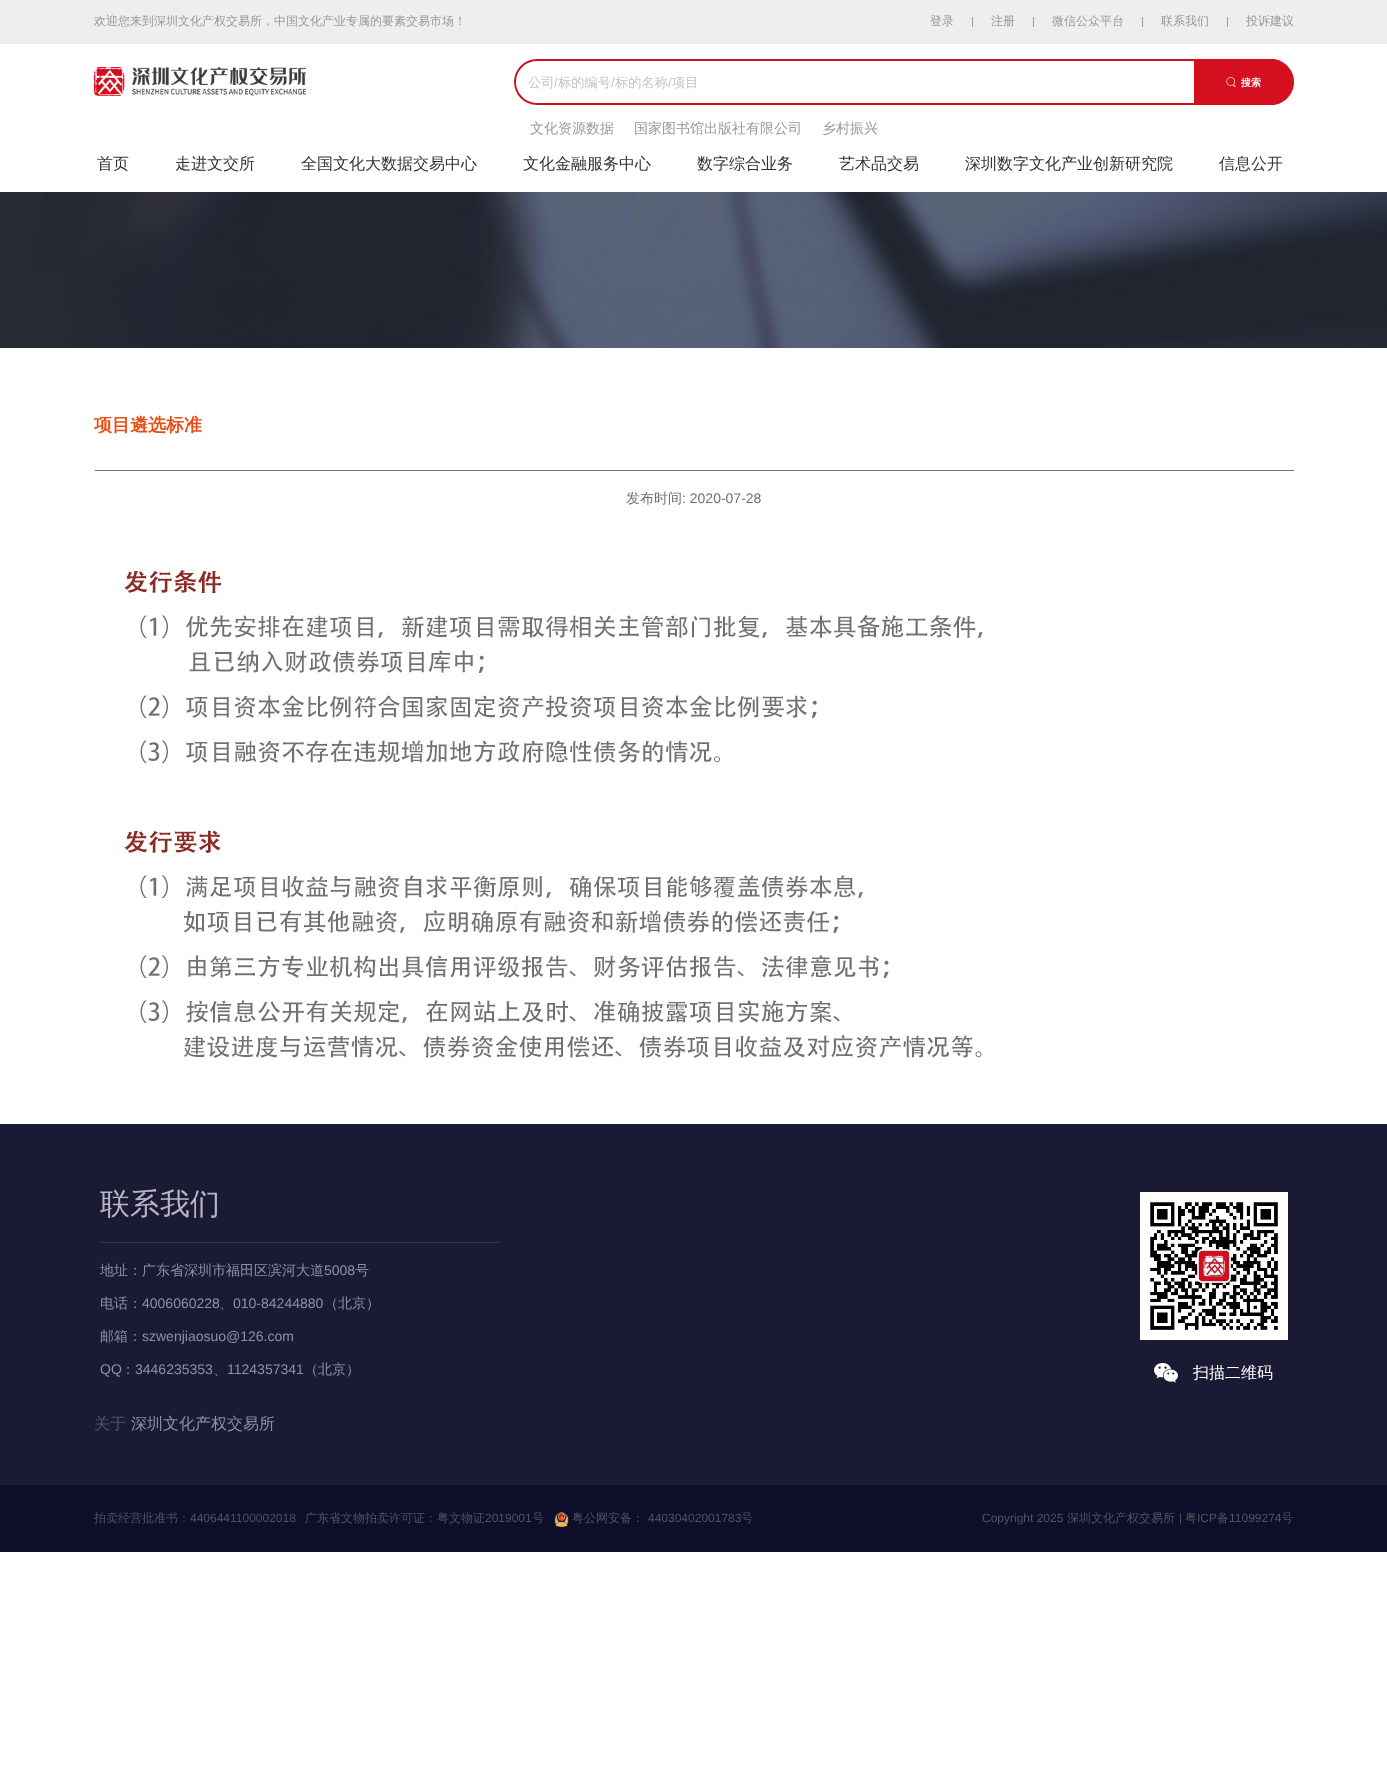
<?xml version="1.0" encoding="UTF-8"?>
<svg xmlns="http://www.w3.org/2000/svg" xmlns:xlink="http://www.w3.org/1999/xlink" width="1387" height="1765">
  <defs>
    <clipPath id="clip1"><rect x="514" y="59" width="780" height="46" rx="23" /></clipPath>
    <clipPath id="clip2"><rect x="100" y="1184" width="400" height="58" /></clipPath>
    <clipPath id="clip3"><rect x="94" y="1510" width="1200" height="17" /></clipPath>
  </defs>
  <rect width="100%" height="100%" fill="#ffffff" />
  <rect width="1387" height="44" fill="#eeeeee" />
  <rect x="972" y="17" width="1" height="10" fill="#999999" />
  <rect x="1033" y="17" width="1" height="10" fill="#999999" />
  <rect x="1142" y="17" width="1" height="10" fill="#999999" />
  <rect x="1227" y="17" width="1" height="10" fill="#999999" />
  <image x="94" y="67" width="212" height="29" xlink:href="image1.png" />
  <rect x="514" y="59" width="780" height="46" rx="23" fill="#d40f1f" />
  <g clip-path="url(#clip1)">
    <path d="M 537 61 h 757 v 42 h -757 c -11.5 0 -21 -9.5 -21 -21 c 0 -11.5 9.5 -21 21 -21 z" fill="#ffffff" />
  </g>
  <path d="M 1194 59 h 77 c 12.5 0 23 10.5 23 23 c 0 12.5 -10.5 23 -23 23 h -77 z" fill="#d40f1f" />
  <image x="1226" y="77" width="10" height="11" xlink:href="image2.png" />
  <image x="0" y="192" width="1387" height="156" xlink:href="image3.png" />
  <rect x="95" y="470" width="1199" height="1" fill="#717171" />
  <image x="122" y="566" width="861" height="492" xlink:href="image4.png" />
  <rect y="1124" width="1387" height="361" fill="#1a1a34" />
  <rect x="100" y="1242" width="400" height="1" fill="#313148" />
  <image x="1140" y="1192" width="148" height="148" xlink:href="image5.png" />
  <image x="1154" y="1362" width="24" height="21" xlink:href="image6.png" />
  <rect y="1485" width="1387" height="67" fill="#0e0e2a" />
  <image x="554" y="1512" width="15" height="15" xlink:href="image7.png" />
  <text x="94" y="25" style="font-family: WenQuanYi Zen Hei; font-size: 12px; font-weight: 500; fill: #999999">欢迎您来到深圳文化产权交易所，中国文化产业专属的要素交易市场！</text>
  <text x="930" y="25" style="font-family: WenQuanYi Zen Hei; font-size: 12px; font-weight: 500; fill: #999999">登录</text>
  <text x="991" y="25" style="font-family: WenQuanYi Zen Hei; font-size: 12px; font-weight: 500; fill: #999999">注册</text>
  <text x="1052" y="25" style="font-family: WenQuanYi Zen Hei; font-size: 12px; font-weight: 500; fill: #999999">微信公众平台</text>
  <text x="1161" y="25" style="font-family: WenQuanYi Zen Hei; font-size: 12px; font-weight: 500; fill: #999999">联系我们</text>
  <text x="1246" y="25" style="font-family: WenQuanYi Zen Hei; font-size: 12px; font-weight: 500; fill: #999999">投诉建议</text>
  <text x="528" y="87" style="font-family: WenQuanYi Zen Hei; font-size: 13.25px; font-weight: 500; fill: #c4c3c2">公司</text>
  <text x="554" y="87" style="font-family: Liberation Sans; font-size: 13.25px; fill: #c4c3c2">/</text>
  <text x="558" y="87" style="font-family: WenQuanYi Zen Hei; font-size: 13.25px; font-weight: 500; fill: #c4c3c2">标的编号</text>
  <text x="611" y="87" style="font-family: Liberation Sans; font-size: 13.25px; fill: #c4c3c2">/</text>
  <text x="615" y="87" style="font-family: WenQuanYi Zen Hei; font-size: 13.25px; font-weight: 500; fill: #c4c3c2">标的名称 项目</text>
  <text x="668" y="87" style="font-family: Liberation Sans; font-size: 13.25px; fill: #c4c3c2">/</text>
  <text x="1241" y="86" style="font-family: WenQuanYi Zen Hei; font-size: 10px; font-weight: bold; fill: #ffffff">搜索</text>
  <text x="530" y="133" style="font-family: WenQuanYi Zen Hei; font-size: 14px; font-weight: 500; fill: #999999">文化资源数据</text>
  <text x="634" y="133" style="font-family: WenQuanYi Zen Hei; font-size: 14px; font-weight: 500; fill: #999999">国家图书馆出版社有限公司</text>
  <text x="822" y="133" style="font-family: WenQuanYi Zen Hei; font-size: 14px; font-weight: 500; fill: #999999">乡村振兴</text>
  <text x="97" y="169" style="font-family: WenQuanYi Zen Hei; font-size: 16px; font-weight: 500; fill: #333333">首页</text>
  <text x="175" y="169" style="font-family: WenQuanYi Zen Hei; font-size: 16px; font-weight: 500; fill: #333333">走进文交所</text>
  <text x="301" y="169" style="font-family: WenQuanYi Zen Hei; font-size: 16px; font-weight: 500; fill: #333333">全国文化大数据交易中心</text>
  <text x="523" y="169" style="font-family: WenQuanYi Zen Hei; font-size: 16px; font-weight: 500; fill: #333333">文化金融服务中心</text>
  <text x="697" y="169" style="font-family: WenQuanYi Zen Hei; font-size: 16px; font-weight: 500; fill: #333333">数字综合业务</text>
  <text x="839" y="169" style="font-family: WenQuanYi Zen Hei; font-size: 16px; font-weight: 500; fill: #333333">艺术品交易</text>
  <text x="965" y="169" style="font-family: WenQuanYi Zen Hei; font-size: 16px; font-weight: 500; fill: #333333">深圳数字文化产业创新研究院</text>
  <text x="1219" y="169" style="font-family: WenQuanYi Zen Hei; font-size: 16px; font-weight: 500; fill: #333333">信息公开</text>
  <text x="94" y="431" style="font-family: WenQuanYi Zen Hei; font-size: 18px; font-weight: bold; fill: #eb4c12">项目遴选标准</text>
  <text x="626" y="503" style="font-family: WenQuanYi Zen Hei; font-size: 14px; font-weight: 500; fill: #707070">发布时间</text>
  <text x="682" y="503" style="font-family: Liberation Sans; font-size: 14px; fill: #707070">: 2020-07-28</text>
  <g clip-path="url(#clip2)">
    <text x="100" y="1214" style="font-family: WenQuanYi Zen Hei; font-size: 30px; font-weight: 500; fill: #b5b5c3">联系我们</text>
  </g>
  <text x="100" y="1275" style="font-family: WenQuanYi Zen Hei; font-size: 14px; font-weight: 500; fill: #8f8fa8">地址：广东省深圳市福田区滨河大道</text>
  <text x="324" y="1275" style="font-family: Liberation Sans; font-size: 14px; fill: #8f8fa8">5008</text>
  <text x="355" y="1275" style="font-family: WenQuanYi Zen Hei; font-size: 14px; font-weight: 500; fill: #8f8fa8">号</text>
  <text x="100" y="1308" style="font-family: WenQuanYi Zen Hei; font-size: 14px; font-weight: 500; fill: #8f8fa8">电话：</text>
  <text x="142" y="1308" style="font-family: Liberation Sans; font-size: 14px; fill: #8f8fa8">4006060228</text>
  <text x="219" y="1308" style="font-family: WenQuanYi Zen Hei; font-size: 14px; font-weight: 500; fill: #8f8fa8">、</text>
  <text x="233" y="1308" style="font-family: Liberation Sans; font-size: 14px; fill: #8f8fa8">010-84244880</text>
  <text x="324" y="1308" style="font-family: WenQuanYi Zen Hei; font-size: 14px; font-weight: 500; fill: #8f8fa8">（北京）</text>
  <text x="100" y="1341" style="font-family: WenQuanYi Zen Hei; font-size: 14px; font-weight: 500; fill: #8f8fa8">邮箱：</text>
  <text x="142" y="1341" style="font-family: Liberation Sans; font-size: 14px; fill: #8f8fa8">szwenjiaosuo@126.com</text>
  <text x="100" y="1374" style="font-family: Liberation Sans; font-size: 14px; fill: #8f8fa8">QQ</text>
  <text x="121" y="1374" style="font-family: WenQuanYi Zen Hei; font-size: 14px; font-weight: 500; fill: #8f8fa8">：</text>
  <text x="135" y="1374" style="font-family: Liberation Sans; font-size: 14px; fill: #8f8fa8">3446235353</text>
  <text x="213" y="1374" style="font-family: WenQuanYi Zen Hei; font-size: 14px; font-weight: 500; fill: #8f8fa8">、</text>
  <text x="227" y="1374" style="font-family: Liberation Sans; font-size: 14px; fill: #8f8fa8">1124357341</text>
  <text x="304" y="1374" style="font-family: WenQuanYi Zen Hei; font-size: 14px; font-weight: 500; fill: #8f8fa8">（北京）</text>
  <text x="1193" y="1378" style="font-family: WenQuanYi Zen Hei; font-size: 16px; font-weight: 500; fill: #ffffff">扫描二维码</text>
  <text x="94" y="1429" style="font-family: WenQuanYi Zen Hei; font-size: 16px; font-weight: 500; fill: #525261">关于</text>
  <text x="131" y="1429" style="font-family: WenQuanYi Zen Hei; font-size: 16px; font-weight: 500; fill: #8f8fa8">深圳文化产权交易所</text>
  <g clip-path="url(#clip3)">
    <text x="94" y="1522" style="font-family: WenQuanYi Zen Hei; font-size: 12px; font-weight: 500; fill: #525261">拍卖经营批准书：</text>
  </g>
  <text x="190" y="1522" style="font-family: Liberation Sans; font-size: 12px; fill: #525261">4406441100002018</text>
  <text x="305" y="1522" style="font-family: WenQuanYi Zen Hei; font-size: 12px; font-weight: 500; fill: #525261">广东省文物拍卖许可证：粤文物证</text>
  <text x="485" y="1522" style="font-family: Liberation Sans; font-size: 12px; fill: #525261">2019001</text>
  <text x="532" y="1522" style="font-family: WenQuanYi Zen Hei; font-size: 12px; font-weight: 500; fill: #525261">号</text>
  <text x="572" y="1522" style="font-family: WenQuanYi Zen Hei; font-size: 12px; font-weight: 500; fill: #525261">粤公网安备：</text>
  <text x="648" y="1522" style="font-family: Liberation Sans; font-size: 12px; fill: #525261">44030402001783</text>
  <text x="741" y="1522" style="font-family: WenQuanYi Zen Hei; font-size: 12px; font-weight: 500; fill: #525261">号</text>
  <text x="982" y="1522" style="font-family: Liberation Sans; font-size: 12px; fill: #525261">Copyright 2025</text>
  <text x="1067" y="1522" style="font-family: WenQuanYi Zen Hei; font-size: 12px; font-weight: 500; fill: #525261">深圳文化产权交易所</text>
  <text x="1179" y="1522" style="font-family: Liberation Sans; font-size: 12px; fill: #525261">|</text>
  <text x="1185" y="1522" style="font-family: WenQuanYi Zen Hei; font-size: 12px; font-weight: 500; fill: #525261">粤</text>
  <text x="1197" y="1522" style="font-family: Liberation Sans; font-size: 12px; fill: #525261">ICP</text>
  <text x="1217" y="1522" style="font-family: WenQuanYi Zen Hei; font-size: 12px; font-weight: 500; fill: #525261">备</text>
  <text x="1229" y="1522" style="font-family: Liberation Sans; font-size: 12px; fill: #525261">11099274</text>
  <text x="1281" y="1522" style="font-family: WenQuanYi Zen Hei; font-size: 12px; font-weight: 500; fill: #525261">号</text>
</svg>
